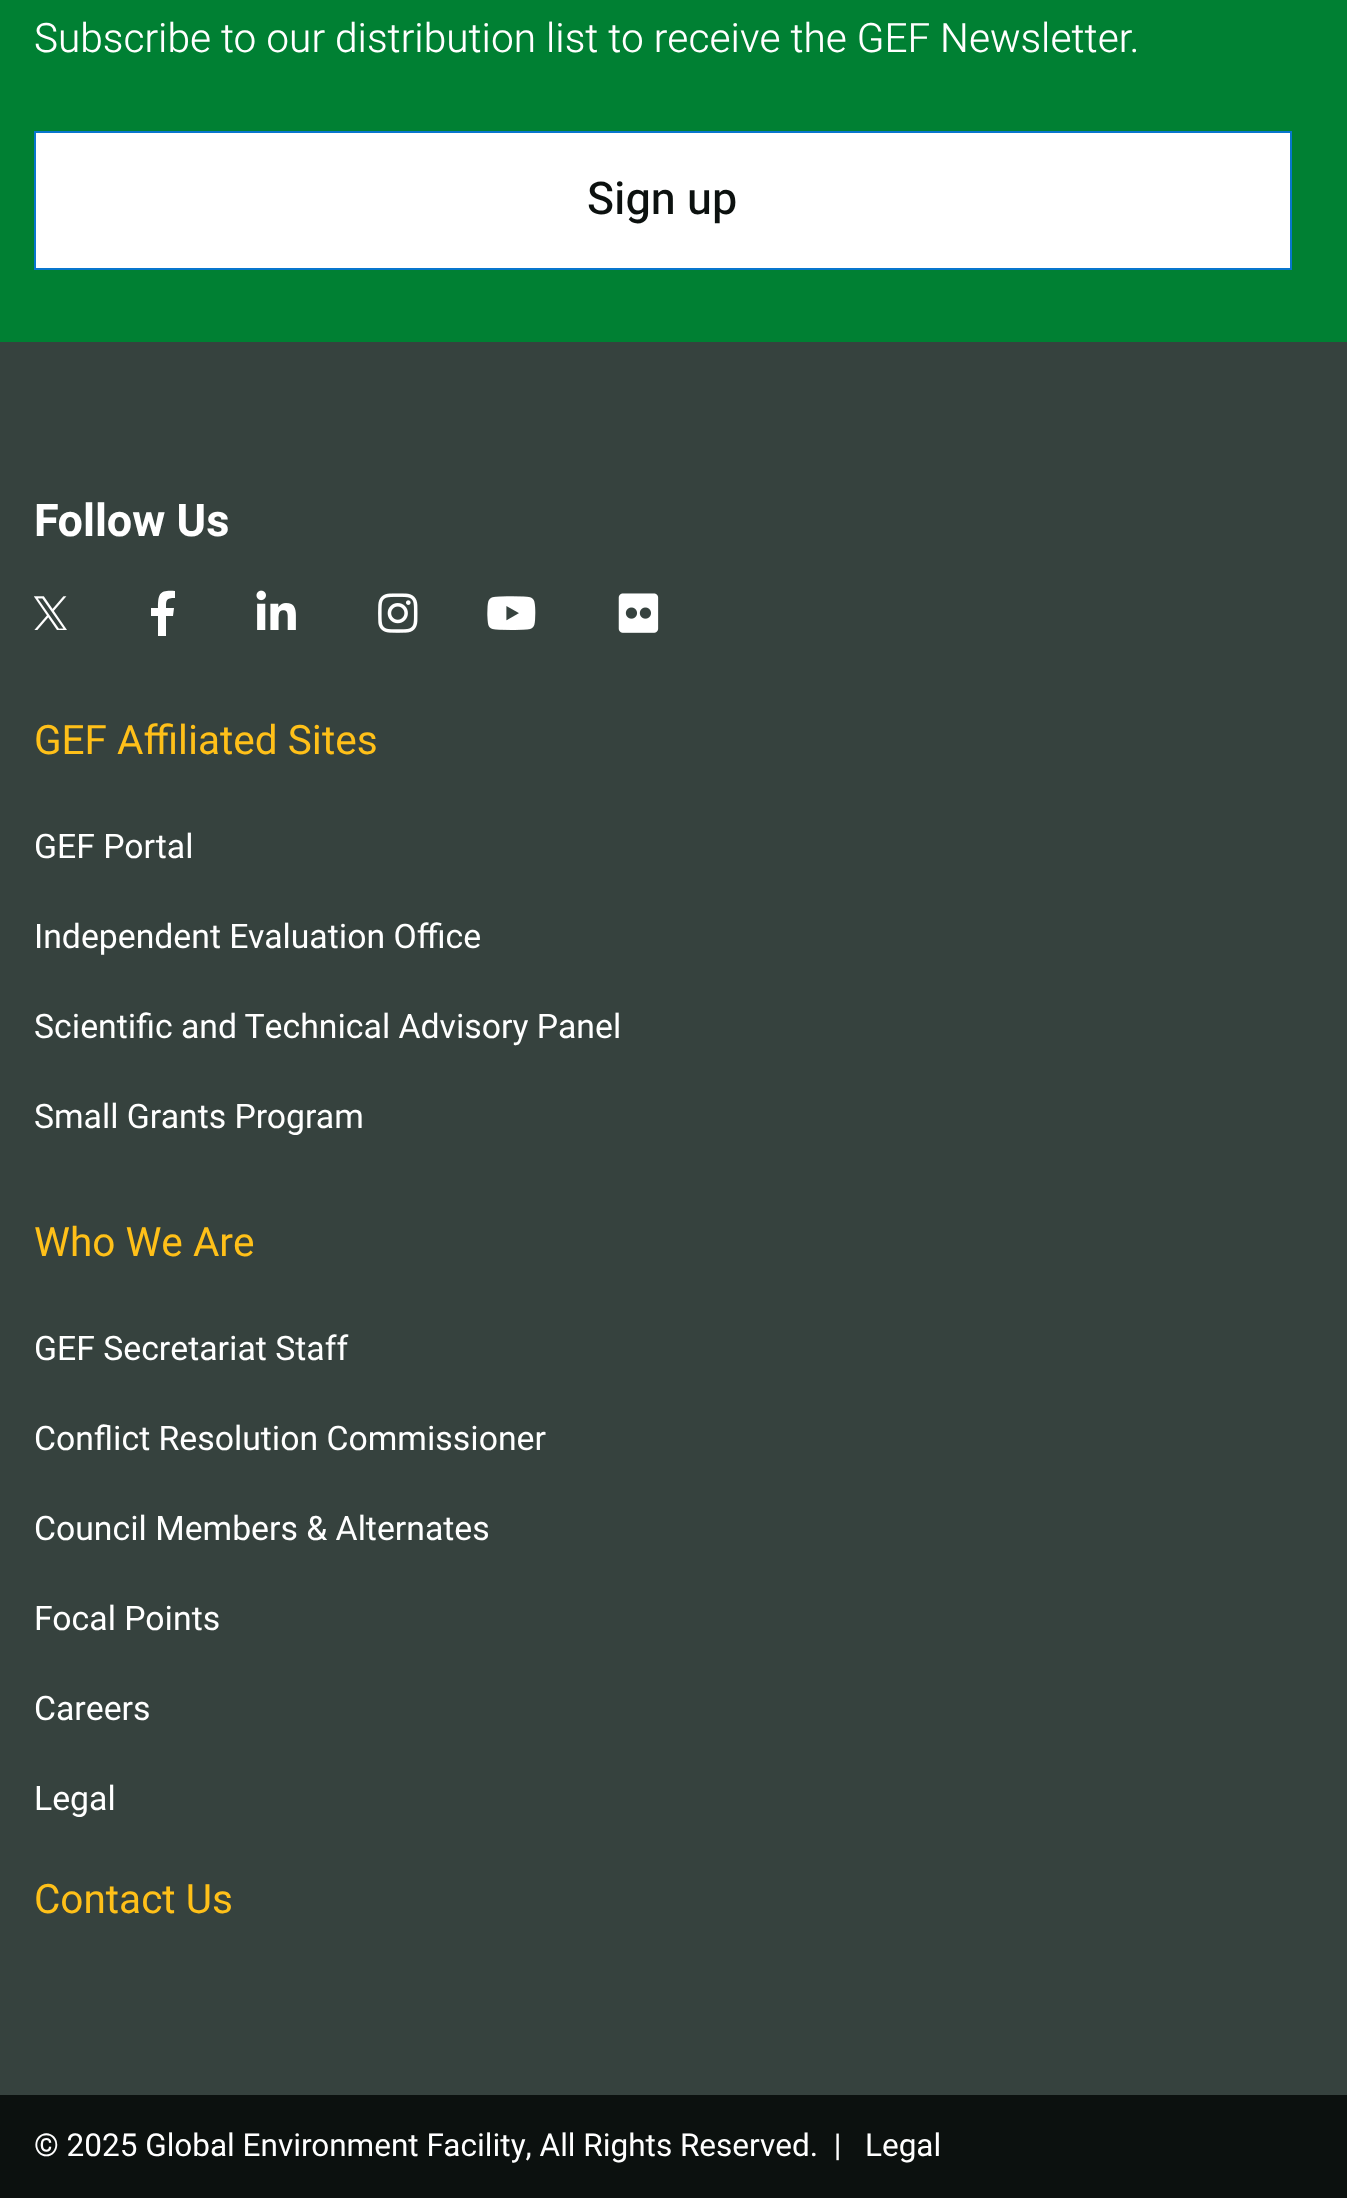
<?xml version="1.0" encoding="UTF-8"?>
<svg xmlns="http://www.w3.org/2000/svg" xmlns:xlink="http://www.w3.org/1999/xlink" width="1347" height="2199">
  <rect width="100%" height="100%" fill="#ffffff" />
  <rect width="1347" height="342" fill="#008033" />
  <rect x="35" y="132" width="1256" height="137" fill="#ffffff" stroke="#0876cd" stroke-width="2" />
  <rect y="342" width="1347" height="1753" fill="#36423e" />
  <image x="34" y="596" width="33" height="34" xlink:href="image1.png" />
  <path d="M 173 616 h -7 v 20 h -8 v -20 h -7 v -8 h 7 c 0 -15 2 -18 17 -17 v 7 c -9 0 -9 2 -9 10 h 8 z" fill="#ffffff" />
  <image x="256" y="590" width="40" height="40" xlink:href="image2.png" />
  <image x="378" y="593" width="40" height="40" xlink:href="image3.png" />
  <image x="487" y="596" width="49" height="34" xlink:href="image4.png" />
  <image x="618" y="593" width="41" height="40" xlink:href="image5.png" />
  <rect y="2095" width="1347" height="103" fill="#0c110f" />
  <text x="34" y="52" style="font-family: Heebo; font-size: 40.5px; font-weight: 300; fill: #ffffff">Subscribe to our distribution list to receive the GEF Newsletter.</text>
  <text x="587" y="214" style="font-family: Heebo; font-size: 45px; font-weight: 500; fill: #0c110f">Sign up</text>
  <text x="34" y="536" style="font-family: Heebo; font-size: 45px; font-weight: bold; fill: #ffffff">Follow Us</text>
  <text x="34" y="754" style="font-family: Heebo; font-size: 40.5px; fill: #ffc019">GEF Affiliated Sites</text>
  <text x="34" y="858" style="font-family: Heebo; font-size: 33.75px; fill: #ffffff">GEF Portal</text>
  <text x="34" y="948" style="font-family: Heebo; font-size: 33.75px; fill: #ffffff">Independent Evaluation Office</text>
  <text x="34" y="1038" style="font-family: Heebo; font-size: 33.75px; fill: #ffffff">Scientific and Technical Advisory Panel</text>
  <text x="34" y="1128" style="font-family: Heebo; font-size: 33.75px; fill: #ffffff">Small Grants Program</text>
  <text x="34" y="1256" style="font-family: Heebo; font-size: 40.5px; fill: #ffc019">Who We Are</text>
  <text x="34" y="1360" style="font-family: Heebo; font-size: 33.75px; fill: #ffffff">GEF Secretariat Staff</text>
  <text x="34" y="1450" style="font-family: Heebo; font-size: 33.75px; fill: #ffffff">Conflict Resolution Commissioner</text>
  <text x="34" y="1540" style="font-family: Heebo; font-size: 33.75px; fill: #ffffff">Council Members &amp; Alternates</text>
  <text x="34" y="1630" style="font-family: Heebo; font-size: 33.75px; fill: #ffffff">Focal Points</text>
  <text x="34" y="1720" style="font-family: Heebo; font-size: 33.75px; fill: #ffffff">Careers</text>
  <text x="34" y="1810" style="font-family: Heebo; font-size: 33.75px; fill: #ffffff">Legal</text>
  <text x="34" y="1913" style="font-family: Heebo; font-size: 40.5px; fill: #ffc019">Contact Us</text>
  <text x="34" y="2156" style="font-family: Heebo; font-size: 31.5px; fill: #ffffff" xml:space="preserve">© 2025 Global Environment Facility, All Rights Reserved.  |</text>
  <text x="865" y="2156" style="font-family: Heebo; font-size: 31.5px; fill: #ffffff">Legal</text>
</svg>
